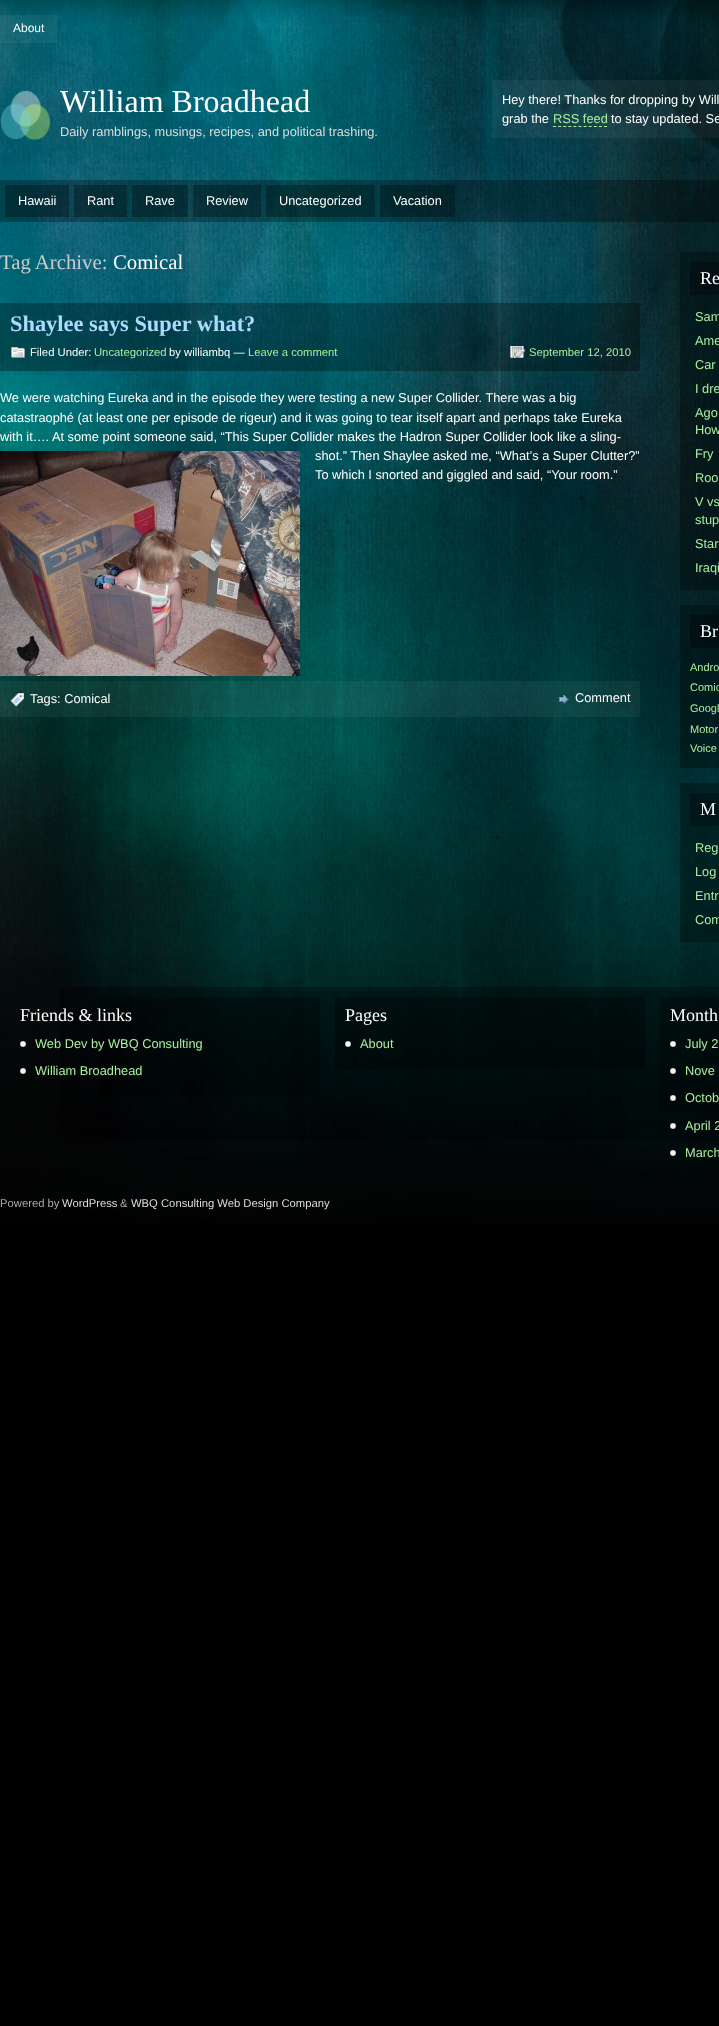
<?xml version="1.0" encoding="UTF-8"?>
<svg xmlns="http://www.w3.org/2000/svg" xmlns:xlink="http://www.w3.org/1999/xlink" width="719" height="2026">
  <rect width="100%" height="100%" fill="#000000" />
  <image x="0" y="0" width="719" height="1224" xlink:href="image1.png" />
  <rect y="15" width="57" height="28" fill="#ffffff" fill-opacity="0.05" />
  <image x="0" y="90" width="50" height="50" xlink:href="image2.png" />
  <rect x="492" y="80" width="227" height="58" fill="#ffffff" fill-opacity="0.05" />
  <path d="M 553 126.5 h 54" fill="none" stroke="#a8ef9d" stroke-dasharray="3 2.1" />
  <rect y="180" width="719" height="42" fill="#000000" fill-opacity="0.3" />
  <rect x="5" y="185" width="64" height="32" fill="#000000" fill-opacity="0.3" />
  <rect x="74" y="185" width="53" height="32" fill="#000000" fill-opacity="0.3" />
  <rect x="132" y="185" width="56" height="32" fill="#000000" fill-opacity="0.3" />
  <rect x="193" y="185" width="68" height="32" fill="#000000" fill-opacity="0.3" />
  <rect x="266" y="185" width="109" height="32" fill="#000000" fill-opacity="0.3" />
  <rect x="380" y="185" width="75" height="32" fill="#000000" fill-opacity="0.3" />
  <rect y="303" width="640" height="68" fill="#000000" fill-opacity="0.3" />
  <image x="11" y="347" width="14" height="11" xlink:href="image3.png" />
  <image x="510" y="346" width="15" height="12" xlink:href="image4.png" />
  <image x="0" y="451" width="300" height="225" xlink:href="image5.png" />
  <rect y="681" width="640" height="36" fill="#ffffff" fill-opacity="0.05" />
  <image x="10" y="693" width="14" height="14" xlink:href="image6.png" />
  <image x="559" y="695" width="10" height="9" xlink:href="image7.png" />
  <rect x="680" y="252" width="39" height="338" fill="#000000" fill-opacity="0.3" />
  <rect x="690" y="262" width="29" height="33" fill="#000000" fill-opacity="0.3" />
  <rect x="680" y="605" width="39" height="163" fill="#000000" fill-opacity="0.3" />
  <rect x="690" y="615" width="29" height="33" fill="#000000" fill-opacity="0.3" />
  <rect x="680" y="783" width="39" height="159" fill="#000000" fill-opacity="0.3" />
  <rect x="690" y="793" width="29" height="33" fill="#000000" fill-opacity="0.3" />
  <rect x="60" y="987" width="659" height="153" fill="#000000" fill-opacity="0.3" />
  <rect x="100" y="997" width="220" height="99" fill="#000000" fill-opacity="0.3" />
  <image x="20" y="1041" width="6" height="6" xlink:href="image8.png" />
  <image x="20" y="1068" width="6" height="6" xlink:href="image9.png" />
  <rect x="335" y="997" width="310" height="72" fill="#000000" fill-opacity="0.3" />
  <image x="345" y="1041" width="6" height="6" xlink:href="image10.png" />
  <rect x="660" y="997" width="59" height="115" fill="#000000" fill-opacity="0.3" />
  <image x="670" y="1041" width="6" height="6" xlink:href="image11.png" />
  <image x="670" y="1068" width="6" height="6" xlink:href="image12.png" />
  <image x="670" y="1095" width="6" height="6" xlink:href="image13.png" />
  <image x="670" y="1123" width="6" height="6" xlink:href="image14.png" />
  <image x="670" y="1150" width="6" height="6" xlink:href="image15.png" />
  <text x="13" y="32" style="font-family: Liberation Sans; font-size: 12px; fill: #ffffff">About</text>
  <text x="60" y="112" style="font-family: Liberation Serif; font-size: 32px; fill: #ffffff">William Broadhead</text>
  <text x="60" y="136" style="font-family: Liberation Sans; font-size: 12.8px; fill: #dddddd">Daily ramblings, musings, recipes, and political trashing.</text>
  <text x="502" y="104" style="font-family: Liberation Sans; font-size: 12.8px; fill: #ffffff">Hey there! Thanks for dropping by Will</text>
  <text x="502" y="123" style="font-family: Liberation Sans; font-size: 12.8px; fill: #ffffff">grab the</text>
  <text x="553" y="123" style="font-family: Liberation Sans; font-size: 12.8px; fill: #a8ef9d">RSS feed</text>
  <text x="611" y="123" style="font-family: Liberation Sans; font-size: 12.8px; fill: #ffffff">to stay updated. Se</text>
  <text x="18" y="205" style="font-family: Liberation Sans; font-size: 12.8px; fill: #ffffff">Hawaii</text>
  <text x="87" y="205" style="font-family: Liberation Sans; font-size: 12.8px; fill: #ffffff">Rant</text>
  <text x="145" y="205" style="font-family: Liberation Sans; font-size: 12.8px; fill: #ffffff">Rave</text>
  <text x="206" y="205" style="font-family: Liberation Sans; font-size: 12.8px; fill: #ffffff">Review</text>
  <text x="279" y="205" style="font-family: Liberation Sans; font-size: 12.8px; fill: #ffffff">Uncategorized</text>
  <text x="393" y="205" style="font-family: Liberation Sans; font-size: 12.8px; fill: #ffffff">Vacation</text>
  <text x="0" y="269" style="font-family: Liberation Serif; font-size: 20.75px; fill: #cccccc">Tag Archive:</text>
  <text x="113" y="269" style="font-family: Liberation Serif; font-size: 20.75px; fill: #ffffff">Comical</text>
  <text x="10" y="331" style="font-family: Liberation Serif; font-size: 22.4px; font-weight: bold; fill: #afdaff">Shaylee says Super what?</text>
  <text x="30" y="356" style="font-family: Liberation Sans; font-size: 11.25px; fill: #ffffff">Filed Under:</text>
  <text x="94" y="356" style="font-family: Liberation Sans; font-size: 11.25px; fill: #a8ef9d">Uncategorized</text>
  <text x="169" y="356" style="font-family: Liberation Sans; font-size: 11.25px; fill: #ffffff">by williambq —</text>
  <text x="248" y="356" style="font-family: Liberation Sans; font-size: 11.25px; fill: #a8ef9d">Leave a comment</text>
  <text x="529" y="356" style="font-family: Liberation Sans; font-size: 11.25px; fill: #a8ef9d">September 12, 2010</text>
  <text x="0" y="402" style="font-family: Liberation Sans; font-size: 12.8px; fill: #ffffff">We were watching Eureka and in the episode they were testing a new Super Collider. There was a big</text>
  <text x="0" y="422" style="font-family: Liberation Sans; font-size: 12.8px; fill: #ffffff">catastraophé (at least one per episode de rigeur) and it was going to tear itself apart and perhaps take Eureka</text>
  <text x="0" y="441" style="font-family: Liberation Sans; font-size: 12.8px; fill: #ffffff">with it…. At some point someone said, “This Super Collider makes the Hadron Super Collider look like a sling-</text>
  <text x="315" y="460" style="font-family: Liberation Sans; font-size: 12.8px; fill: #ffffff">shot.” Then Shaylee asked me, “What’s a Super Clutter?”</text>
  <text x="315" y="479" style="font-family: Liberation Sans; font-size: 12.8px; fill: #ffffff">To which I snorted and giggled and said, “Your room.”</text>
  <text x="30" y="703" style="font-family: Liberation Sans; font-size: 12.8px; fill: #ffffff">Tags: Comical</text>
  <text x="575" y="702" style="font-family: Liberation Sans; font-size: 12.8px; fill: #ffffff">Comment</text>
  <text x="700" y="284" style="font-family: Liberation Serif; font-size: 18px; fill: #ffffff">Re</text>
  <text x="695" y="321" style="font-family: Liberation Sans; font-size: 12.8px; fill: #a8ef9d">Sam</text>
  <text x="695" y="345" style="font-family: Liberation Sans; font-size: 12.8px; fill: #a8ef9d">Ame</text>
  <text x="695" y="369" style="font-family: Liberation Sans; font-size: 12.8px; fill: #a8ef9d">Car</text>
  <text x="695" y="393" style="font-family: Liberation Sans; font-size: 12.8px; fill: #a8ef9d">I dre</text>
  <text x="695" y="417" style="font-family: Liberation Sans; font-size: 12.8px; fill: #a8ef9d">Ago</text>
  <text x="695" y="434" style="font-family: Liberation Sans; font-size: 12.8px; fill: #a8ef9d">How</text>
  <text x="695" y="458" style="font-family: Liberation Sans; font-size: 12.8px; fill: #a8ef9d">Fry</text>
  <text x="695" y="482" style="font-family: Liberation Sans; font-size: 12.8px; fill: #a8ef9d">Roo</text>
  <text x="695" y="506" style="font-family: Liberation Sans; font-size: 12.8px; fill: #a8ef9d">V vs</text>
  <text x="695" y="524" style="font-family: Liberation Sans; font-size: 12.8px; fill: #a8ef9d">stup</text>
  <text x="695" y="548" style="font-family: Liberation Sans; font-size: 12.8px; fill: #a8ef9d">Star</text>
  <text x="695" y="572" style="font-family: Liberation Sans; font-size: 12.8px; fill: #a8ef9d">Iraqi</text>
  <text x="700" y="637" style="font-family: Liberation Serif; font-size: 18px; fill: #ffffff">Br</text>
  <text x="690" y="671" style="font-family: Liberation Sans; font-size: 11px; fill: #a8ef9d">Andro</text>
  <text x="690" y="691" style="font-family: Liberation Sans; font-size: 11px; fill: #a8ef9d">Comic</text>
  <text x="690" y="712" style="font-family: Liberation Sans; font-size: 11px; fill: #a8ef9d">Googl</text>
  <text x="690" y="733" style="font-family: Liberation Sans; font-size: 11px; fill: #a8ef9d">Motor</text>
  <text x="690" y="752" style="font-family: Liberation Sans; font-size: 11px; fill: #a8ef9d">Voice</text>
  <text x="700" y="815" style="font-family: Liberation Serif; font-size: 18px; fill: #ffffff">M</text>
  <text x="695" y="852" style="font-family: Liberation Sans; font-size: 12.8px; fill: #a8ef9d">Reg</text>
  <text x="695" y="876" style="font-family: Liberation Sans; font-size: 12.8px; fill: #a8ef9d">Log</text>
  <text x="695" y="900" style="font-family: Liberation Sans; font-size: 12.8px; fill: #a8ef9d">Entr</text>
  <text x="695" y="924" style="font-family: Liberation Sans; font-size: 12.8px; fill: #a8ef9d">Com</text>
  <text x="20" y="1021" style="font-family: Liberation Serif; font-size: 18px; fill: #ffffff">Friends &amp; links</text>
  <text x="35" y="1048" style="font-family: Liberation Sans; font-size: 12.8px; fill: #a8ef9d">Web Dev by WBQ Consulting</text>
  <text x="35" y="1075" style="font-family: Liberation Sans; font-size: 12.8px; fill: #a8ef9d">William Broadhead</text>
  <text x="345" y="1021" style="font-family: Liberation Serif; font-size: 18px; fill: #ffffff">Pages</text>
  <text x="360" y="1048" style="font-family: Liberation Sans; font-size: 12.8px; fill: #a8ef9d">About</text>
  <text x="670" y="1021" style="font-family: Liberation Serif; font-size: 18px; fill: #ffffff">Month</text>
  <text x="685" y="1048" style="font-family: Liberation Sans; font-size: 12.8px; fill: #a8ef9d">July 2</text>
  <text x="685" y="1075" style="font-family: Liberation Sans; font-size: 12.8px; fill: #a8ef9d">Nove</text>
  <text x="685" y="1102" style="font-family: Liberation Sans; font-size: 12.8px; fill: #a8ef9d">Octob</text>
  <text x="685" y="1130" style="font-family: Liberation Sans; font-size: 12.8px; fill: #a8ef9d">April 2</text>
  <text x="685" y="1157" style="font-family: Liberation Sans; font-size: 12.8px; fill: #a8ef9d">March</text>
  <text x="0" y="1207" style="font-family: Liberation Sans; font-size: 11.25px; fill: #aaaaaa">Powered by</text>
  <text x="62" y="1207" style="font-family: Liberation Sans; font-size: 11.25px; fill: #dddddd">WordPress</text>
  <text x="120" y="1207" style="font-family: Liberation Sans; font-size: 11.25px; fill: #aaaaaa">&amp;</text>
  <text x="131" y="1207" style="font-family: Liberation Sans; font-size: 11.25px; fill: #dddddd">WBQ Consulting Web Design Company</text>
</svg>
